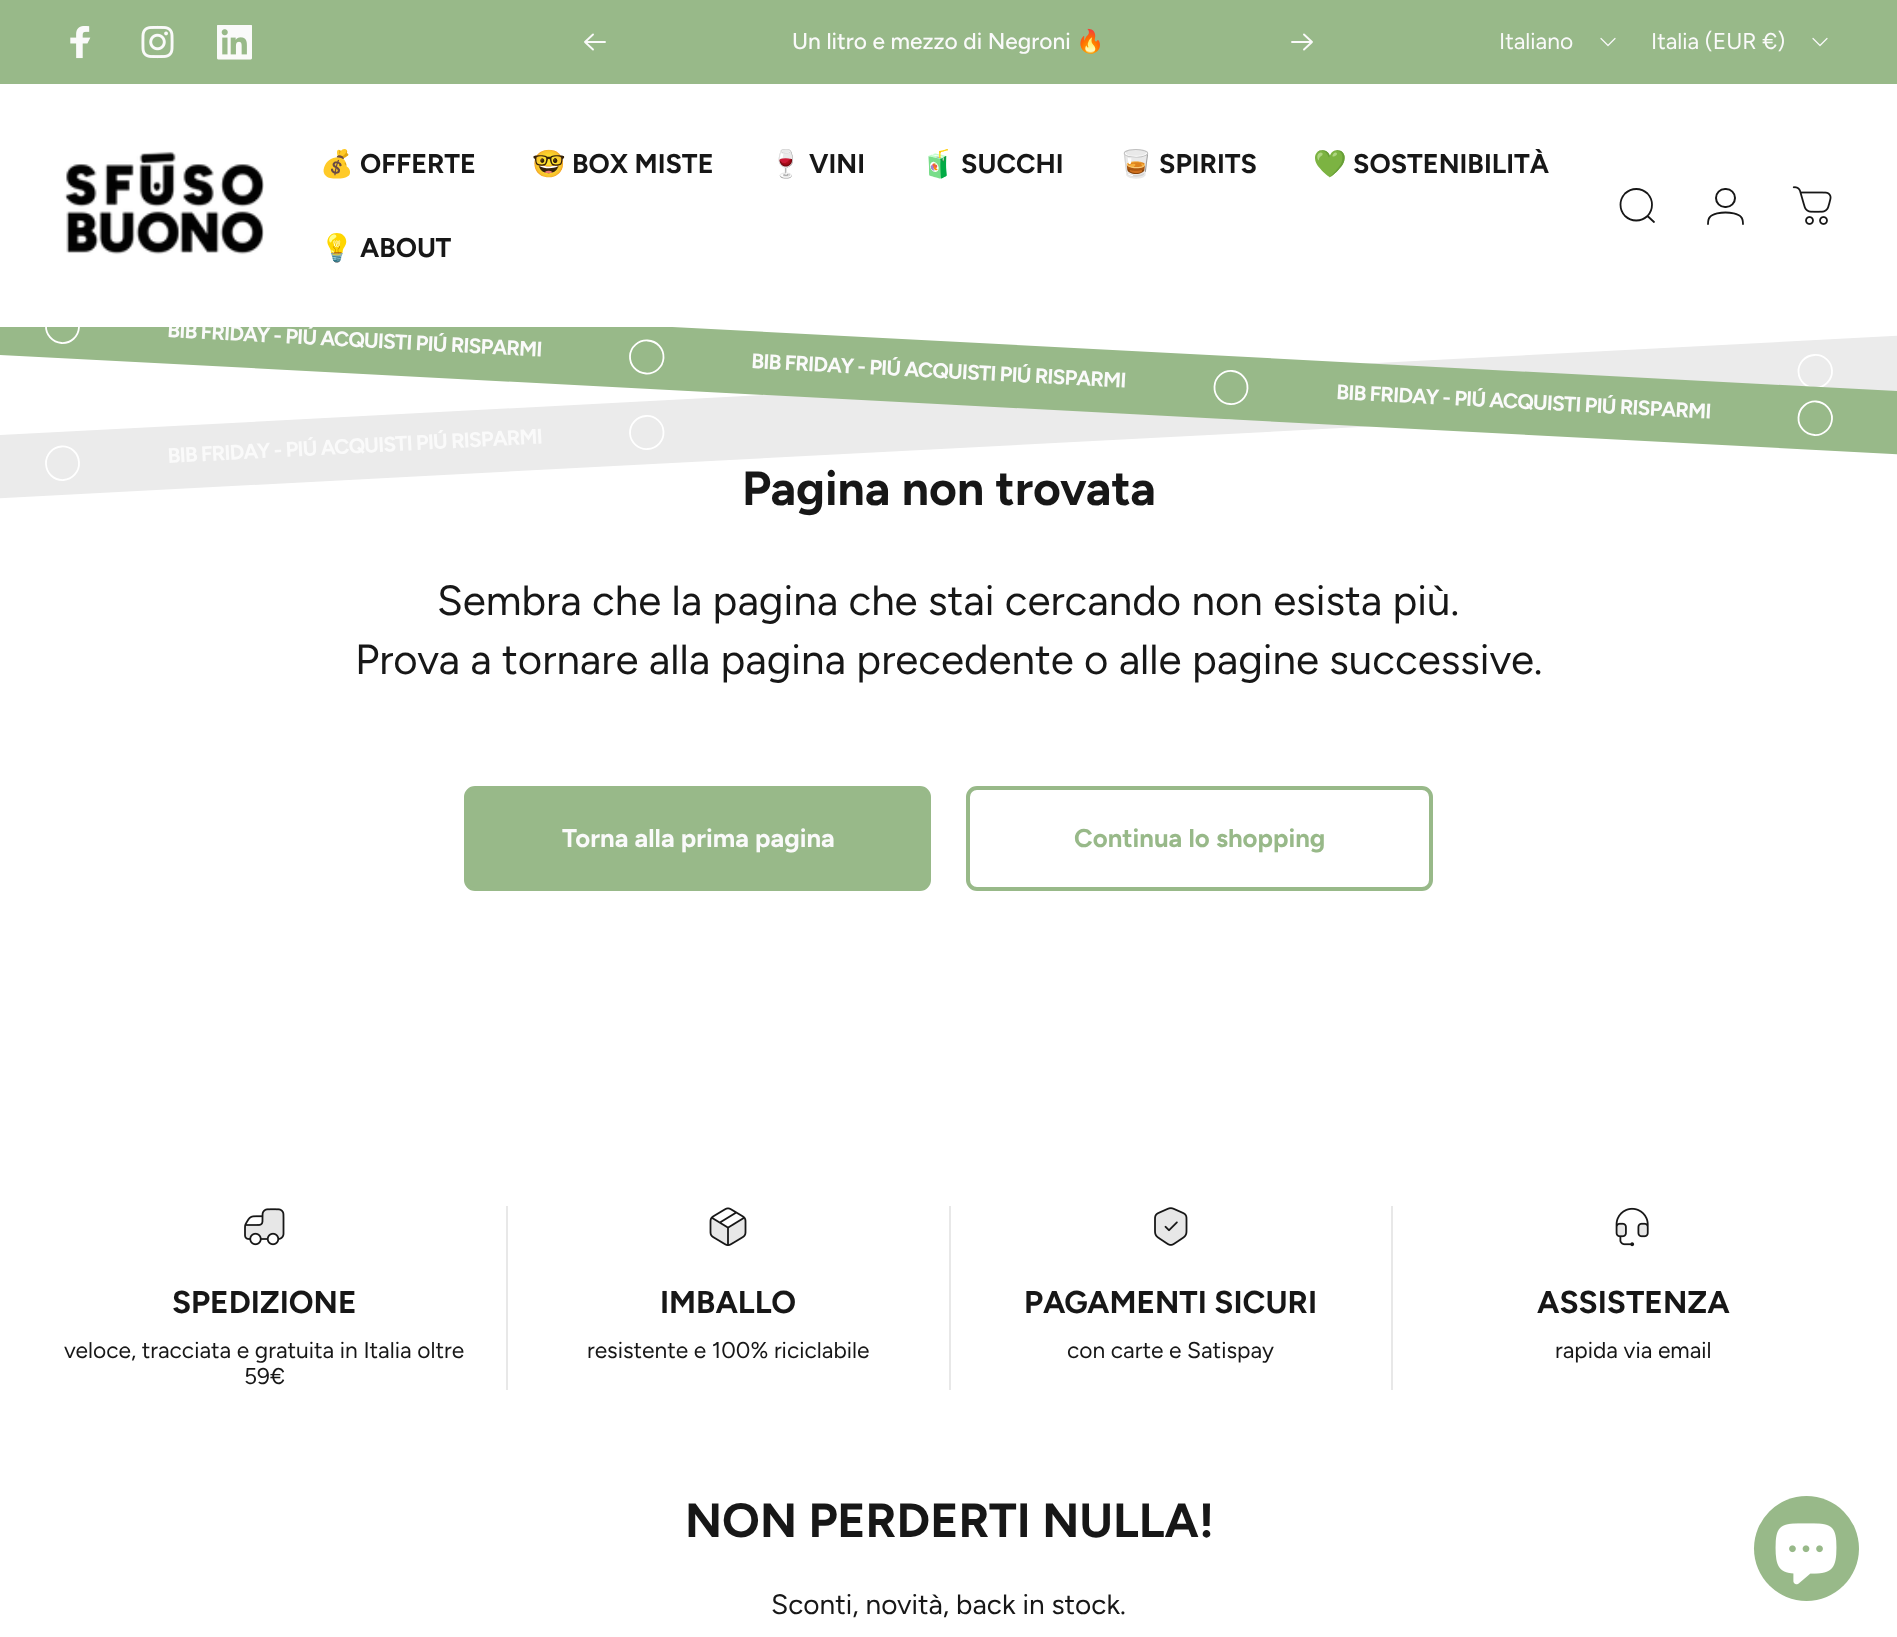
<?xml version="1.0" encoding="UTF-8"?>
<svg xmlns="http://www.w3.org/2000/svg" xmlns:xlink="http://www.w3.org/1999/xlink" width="1897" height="1637">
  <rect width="100%" height="100%" fill="#ffffff" />
  <rect width="1897" height="84" fill="#98b989" />
  <image x="70" y="26" width="21" height="33" xlink:href="image1.png" />
  <image x="141" y="25" width="33" height="34" xlink:href="image2.png" />
  <image x="217" y="25" width="35" height="35" xlink:href="image3.png" />
  <path d="M 593 34.5 l -8 7.5 m 0 0 l 8 7.5 m -8 -7.5 h 20" fill="none" stroke="#fafafa" stroke-width="1.9" stroke-linecap="round" stroke-linejoin="round" />
  <path d="M 1292 42 h 20 m 0 0 l -8 -7.5 m 8 7.5 l -8 7.5" fill="none" stroke="#fafafa" stroke-width="1.9" stroke-linecap="round" stroke-linejoin="round" />
  <path d="M 1601 38.5 l 7 7 l 7 -7" fill="none" stroke="#fafafa" stroke-width="1.2" stroke-linecap="round" stroke-linejoin="round" />
  <path d="M 1813 38.5 l 7 7 l 7 -7" fill="none" stroke="#fafafa" stroke-width="1.2" stroke-linecap="round" stroke-linejoin="round" />
  <image x="64" y="151" width="200" height="104" xlink:href="image4.png" />
  <path d="M 1654 222 l -6.5 -6 m 0 0 c 6 -6.5 6 -16 0 -22.5 c -6.5 -6 -16 -6 -22.5 0 c -6 6.5 -6 16 0 22.5 c 6.5 6 16 6 22.5 0 z" fill="none" stroke="#171717" stroke-width="1.8" stroke-linecap="round" />
  <rect x="1716" y="189" width="19" height="18" rx="9" fill="none" stroke="#171717" stroke-width="2" />
  <path d="M 1725.5 212.5 c 4 0 13 1 15.5 4.5 c 2 2 2 4.5 2 7 m -17.5 -11.5 c -4 0 -13 1 -15.5 4.5 c -2 2 -2 4.5 -2 7" fill="none" stroke="#171717" stroke-width="1.8" stroke-linecap="round" />
  <image x="1792" y="186" width="40" height="39" xlink:href="image5.png" />
  <rect x="466" y="788" width="463" height="101" rx="9" fill="#98b989" stroke="#98b989" stroke-width="4" />
  <rect x="968" y="788" width="463" height="101" rx="9" fill="none" stroke="#98b989" stroke-width="4" />
  <image x="244" y="1208" width="41" height="38" xlink:href="image6.png" />
  <rect x="506" y="1206" width="2" height="184" fill="#e8e8e8" />
  <image x="709" y="1207" width="38" height="39" xlink:href="image7.png" />
  <rect x="949" y="1206" width="2" height="184" fill="#e8e8e8" />
  <image x="1154" y="1207" width="34" height="39" xlink:href="image8.png" />
  <rect x="1391" y="1206" width="2" height="184" fill="#e8e8e8" />
  <image x="1615" y="1207" width="34" height="40" xlink:href="image9.png" />
  <circle cx="1806.5" cy="1548.5" r="52.5" fill="#98b989" />
  <image x="1775" y="1523" width="62" height="62" xlink:href="image10.png" />
  <text x="792" y="49" style="font-family: Figtree; font-size: 22.75px; font-weight: 500; fill: #fafafa">Un litro e mezzo di Negroni</text>
  <text x="1076" y="49" style="font-family: Noto Color Emoji; font-size: 22.75px; fill: #fafafa">🔥</text>
  <text x="1499" y="49" style="font-family: Figtree; font-size: 22.75px; fill: #fafafa">Italiano</text>
  <text x="1651" y="49" style="font-family: Figtree; font-size: 22.75px; fill: #fafafa">Italia (EUR €)</text>
  <text x="320" y="173" style="font-family: Noto Color Emoji; font-size: 27px; font-weight: bold; fill: #171717">💰</text>
  <text x="360" y="173" style="font-family: Figtree; font-size: 27px; font-weight: bold; fill: #171717">OFFERTE</text>
  <text x="532" y="173" style="font-family: Noto Color Emoji; font-size: 27px; font-weight: bold; fill: #171717">🤓</text>
  <text x="572" y="173" style="font-family: Figtree; font-size: 27px; font-weight: bold; fill: #171717">BOX MISTE</text>
  <text x="769" y="173" style="font-family: Noto Color Emoji; font-size: 27px; font-weight: bold; fill: #171717">🍷</text>
  <text x="809" y="173" style="font-family: Figtree; font-size: 27px; font-weight: bold; fill: #171717">VINI</text>
  <text x="921" y="173" style="font-family: Noto Color Emoji; font-size: 27px; font-weight: bold; fill: #171717">🧃</text>
  <text x="961" y="173" style="font-family: Figtree; font-size: 27px; font-weight: bold; fill: #171717">SUCCHI</text>
  <text x="1119" y="173" style="font-family: Noto Color Emoji; font-size: 27px; font-weight: bold; fill: #171717">🥃</text>
  <text x="1159" y="173" style="font-family: Figtree; font-size: 27px; font-weight: bold; fill: #171717">SPIRITS</text>
  <text x="1313" y="173" style="font-family: Noto Color Emoji; font-size: 27px; font-weight: bold; fill: #171717">💚</text>
  <text x="1353" y="173" style="font-family: Figtree; font-size: 27px; font-weight: bold; fill: #171717">SOSTENIBILITÀ</text>
  <text x="320" y="257" style="font-family: Noto Color Emoji; font-size: 27px; font-weight: bold; fill: #171717">💡</text>
  <text x="360" y="257" style="font-family: Figtree; font-size: 27px; font-weight: bold; fill: #171717">ABOUT</text>
  <text x="742" y="505" style="font-family: Figtree; font-size: 48px; font-weight: bold; fill: #171717">Pagina non trovata</text>
  <path d="M -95 440 l 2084 -109 l 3 63 l -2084 109 z" fill="#ebebeb" />
  <path d="M 1814.5 355 c 9 -0.5 17 6.5 17.5 15.5 c 0.5 9 -7 17 -16 17.5 c -9 0.5 -17 -6.5 -17.5 -16 c -0.5 -9 6.5 -16.5 16 -17 z" fill="none" stroke="#ffffff" stroke-width="1.8" />
  <path d="M 1230 385.5 c 9.5 -0.5 17 6.5 17.5 15.5 c 0.5 9.5 -6.5 17 -15.5 17.5 c -9.5 0.5 -17 -6.5 -17.5 -15.5 c -0.5 -9.5 6.5 -17 15.5 -17.5 z" fill="none" stroke="#ffffff" stroke-width="1.8" />
  <path d="M 646 416 c 9 -0.5 17 6.5 17.5 15.5 c 0.5 9.5 -6.5 17 -16 17.5 c -9 0.5 -17 -6.5 -17.5 -15.5 c -0.5 -9 6.5 -17 16 -17.5 z" fill="none" stroke="#ffffff" stroke-width="1.8" />
  <text x="168" y="463" transform="rotate(-3 168 463)" style="font-family: Figtree; font-size: 21px; font-weight: bold; letter-spacing: -0.85px; fill: #fafafa">BIB FRIDAY - PIÚ ACQUISTI PIÚ RISPARMI</text>
  <path d="M 61.5 446.5 c 9.5 -0.5 17 6.5 17.5 16 c 0.5 9 -6.5 17 -15.5 17.5 c -9.5 0.5 -17 -6.5 -17.5 -16 c -0.5 -9 6.5 -17 15.5 -17.5 z" fill="none" stroke="#ffffff" stroke-width="1.8" />
  <path d="M -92 287 l 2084 109 l -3 63 l -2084 -109 z" fill="#98b989" />
  <text x="167" y="337" transform="rotate(3 167 337)" style="font-family: Figtree; font-size: 21px; font-weight: bold; letter-spacing: -0.85px; fill: #fafafa">BIB FRIDAY - PIÚ ACQUISTI PIÚ RISPARMI</text>
  <path d="M 63.5 309.5 c 9 0.5 16 8.5 15.5 17.5 c -0.5 9.5 -8 16.5 -17.5 16 c -9 -0.5 -16 -8.5 -15.5 -17.5 c 0.5 -9 8 -16.5 17.5 -16 z" fill="none" stroke="#ffffff" stroke-width="1.8" />
  <rect y="291" width="673" height="36" fill="#ffffff" />
  <path d="M 1816 401.5 c 9 0.5 16.5 8.5 16 17.5 c -0.5 9 -8.5 16.5 -17.5 16 c -9.5 -0.5 -16.5 -8.5 -16 -17.5 c 0.5 -9.5 8.5 -16.5 17.5 -16 z" fill="none" stroke="#ffffff" stroke-width="1.8" />
  <text x="1336" y="399" transform="rotate(3 1336 399)" style="font-family: Figtree; font-size: 21px; font-weight: bold; letter-spacing: -0.85px; fill: #fafafa">BIB FRIDAY - PIÚ ACQUISTI PIÚ RISPARMI</text>
  <path d="M 1232 371 c 9 0.5 16 8.5 15.5 17.5 c -0.5 9 -8 16 -17.5 15.5 c -9 -0.5 -16 -8 -15.5 -17.5 c 0.5 -9 8 -16 17.5 -15.5 z" fill="none" stroke="#ffffff" stroke-width="1.8" />
  <text x="751" y="368" transform="rotate(3 751 368)" style="font-family: Figtree; font-size: 21px; font-weight: bold; letter-spacing: -0.85px; fill: #fafafa">BIB FRIDAY - PIÚ ACQUISTI PIÚ RISPARMI</text>
  <path d="M 647.5 340.5 c 9.5 0.5 16.5 8 16 17.5 c -0.5 9 -8.5 16 -17.5 15.5 c -9.5 -0.5 -16.5 -8.5 -16 -17.5 c 0.5 -9 8.5 -16 17.5 -15.5 z" fill="none" stroke="#ffffff" stroke-width="1.8" />
  <text x="437" y="615" style="font-family: Figtree; font-size: 42px; fill: #171717">Sembra che la pagina che stai cercando non esista più.</text>
  <text x="355" y="674" style="font-family: Figtree; font-size: 42px; fill: #171717">Prova a tornare alla pagina precedente o alle pagine successive.</text>
  <text x="562" y="847" style="font-family: Figtree; font-size: 25.75px; font-weight: bold; fill: #fafafa">Torna alla prima pagina</text>
  <text x="1074" y="847" style="font-family: Figtree; font-size: 25.75px; font-weight: bold; fill: #98b989">Continua lo shopping</text>
  <text x="172" y="1313" style="font-family: Figtree; font-size: 31.5px; font-weight: bold; fill: #171717">SPEDIZIONE</text>
  <text x="64" y="1358" style="font-family: Figtree; font-size: 22.75px; fill: #171717">veloce, tracciata e gratuita in Italia oltre</text>
  <text x="244" y="1384" style="font-family: Figtree; font-size: 22.75px; fill: #171717">59€</text>
  <text x="660" y="1313" style="font-family: Figtree; font-size: 31.5px; font-weight: bold; fill: #171717">IMBALLO</text>
  <text x="587" y="1358" style="font-family: Figtree; font-size: 22.75px; fill: #171717">resistente e 100% riciclabile</text>
  <text x="1024" y="1313" style="font-family: Figtree; font-size: 31.5px; font-weight: bold; fill: #171717">PAGAMENTI SICURI</text>
  <text x="1067" y="1358" style="font-family: Figtree; font-size: 22.75px; fill: #171717">con carte e Satispay</text>
  <text x="1537" y="1313" style="font-family: Figtree; font-size: 31.5px; font-weight: bold; fill: #171717">ASSISTENZA</text>
  <text x="1555" y="1358" style="font-family: Figtree; font-size: 22.75px; fill: #171717">rapida via email</text>
  <text x="685" y="1537" style="font-family: Figtree; font-size: 48px; font-weight: bold; fill: #171717">NON PERDERTI NULLA!</text>
  <text x="771" y="1614" style="font-family: Figtree; font-size: 28px; fill: #171717">Sconti, novità, back in stock.</text>
</svg>
